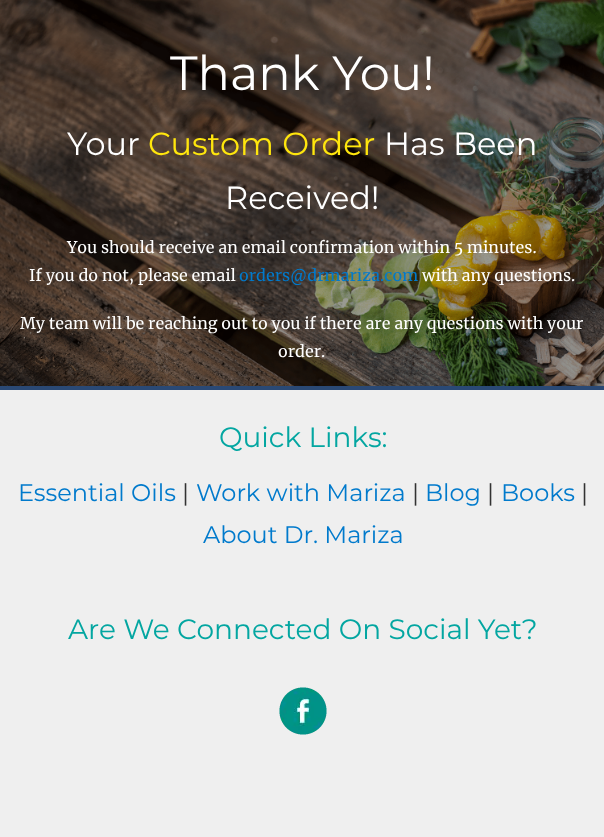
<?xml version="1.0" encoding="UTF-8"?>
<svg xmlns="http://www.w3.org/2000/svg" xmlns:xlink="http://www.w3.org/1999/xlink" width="604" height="837">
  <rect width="100%" height="100%" fill="#ffffff" />
  <image x="0" y="0" width="604" height="386" xlink:href="image1.png" />
  <rect y="386" width="604" height="4" fill="#2a4975" />
  <rect y="390" width="604" height="447" fill="#efefef" />
  <image x="279" y="687" width="48" height="48" xlink:href="image2.png" />
  <text x="170" y="90" style="font-family: Montserrat; font-size: 48px; font-weight: 100; fill: #ffffff">Thank You!</text>
  <text x="67" y="155" style="font-family: Montserrat; font-size: 32px; font-weight: 100; fill: #ffffff">Your</text>
  <text x="148" y="155" style="font-family: Montserrat; font-size: 32px; font-weight: 100; fill: #ffe60d">Custom Order</text>
  <text x="384" y="155" style="font-family: Montserrat; font-size: 32px; font-weight: 100; fill: #ffffff">Has Been</text>
  <text x="225" y="209" style="font-family: Montserrat; font-size: 32px; font-weight: 100; fill: #ffffff">Received!</text>
  <text x="67" y="253" style="font-family: Merriweather; font-size: 16px; fill: #ffffff">You should receive an email confirmation within 5 minutes.</text>
  <text x="29" y="281" style="font-family: Merriweather; font-size: 16px; fill: #ffffff">If you do not, please email</text>
  <text x="239" y="281" style="font-family: Merriweather; font-size: 16px; fill: #007acc">orders@drmariza.com</text>
  <text x="422" y="281" style="font-family: Merriweather; font-size: 16px; fill: #ffffff">with any questions.</text>
  <text x="20" y="329" style="font-family: Merriweather; font-size: 16px; fill: #ffffff">My team will be reaching out to you if there are any questions with your</text>
  <text x="278" y="357" style="font-family: Merriweather; font-size: 16px; fill: #ffffff">order.</text>
  <text x="219" y="447" style="font-family: Montserrat; font-size: 28px; font-weight: 100; fill: #03a6a1">Quick Links:</text>
  <text x="18" y="501" style="font-family: Montserrat; font-size: 24px; font-weight: 100; fill: #007acc">Essential Oils</text>
  <text x="182" y="501" style="font-family: Montserrat; font-size: 24px; font-weight: 100; fill: #333333">|</text>
  <text x="196" y="501" style="font-family: Montserrat; font-size: 24px; font-weight: 100; fill: #007acc">Work with Mariza</text>
  <text x="412" y="501" style="font-family: Montserrat; font-size: 24px; font-weight: 100; fill: #333333">|</text>
  <text x="425" y="501" style="font-family: Montserrat; font-size: 24px; font-weight: 100; fill: #007acc">Blog</text>
  <text x="487" y="501" style="font-family: Montserrat; font-size: 24px; font-weight: 100; fill: #333333">|</text>
  <text x="501" y="501" style="font-family: Montserrat; font-size: 24px; font-weight: 100; fill: #007acc">Books</text>
  <text x="581" y="501" style="font-family: Montserrat; font-size: 24px; font-weight: 100; fill: #333333">|</text>
  <text x="203" y="543" style="font-family: Montserrat; font-size: 24px; font-weight: 100; fill: #007acc">About Dr. Mariza</text>
  <text x="68" y="639" style="font-family: Montserrat; font-size: 28px; font-weight: 100; fill: #03a6a1">Are We Connected On Social Yet?</text>
</svg>
